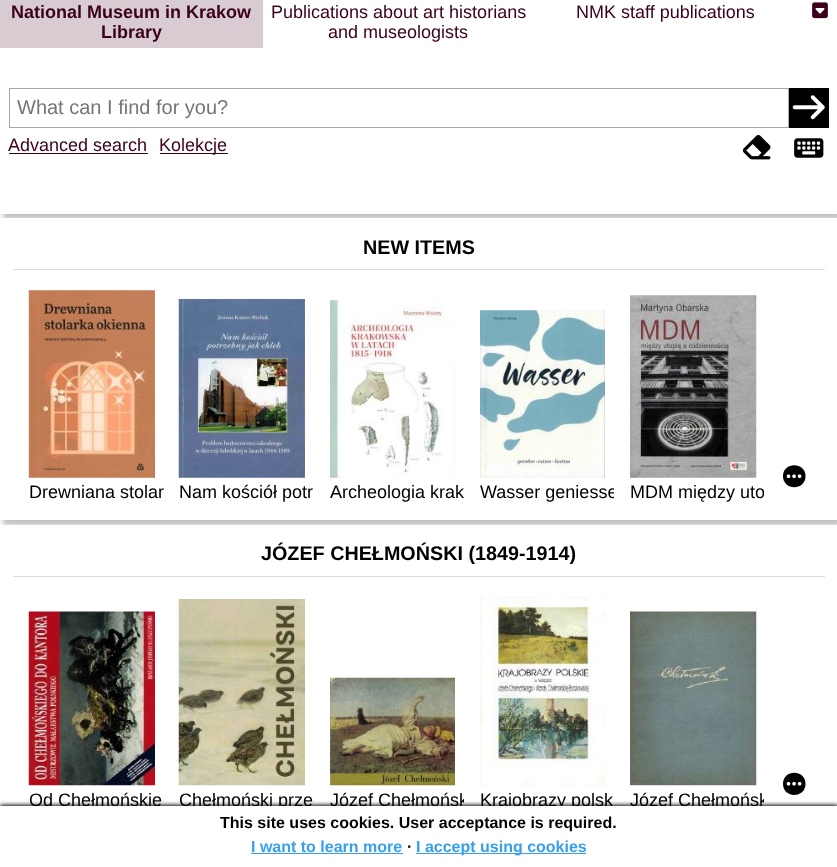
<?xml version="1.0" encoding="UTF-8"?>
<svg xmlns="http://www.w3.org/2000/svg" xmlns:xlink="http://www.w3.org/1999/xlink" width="837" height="867">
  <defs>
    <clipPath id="clip1"><path d="M 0 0 h 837 v 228 h -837 z m 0 -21 h 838 v 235 h -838 z" clip-rule="evenodd" /></clipPath>
    <clipPath id="clip2"><rect x="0" y="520" width="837" height="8" /></clipPath>
    <clipPath id="clip3"><rect x="480" y="483" width="134" height="25" /></clipPath>
    <clipPath id="clip4"><rect x="630" y="483" width="134" height="25" /></clipPath>
    <clipPath id="clip5"><rect x="330" y="790" width="134" height="26" /></clipPath>
    <clipPath id="clip6"><rect x="630" y="790" width="134" height="26" /></clipPath>
  </defs>
  <rect width="100%" height="100%" fill="#ffffff" />
  <g clip-path="url(#clip1)">
    <rect x="3" y="-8" width="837" height="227" fill="#000000" fill-opacity="0.25" filter="blur(2.5px)" />
  </g>
  <rect x="1" y="213" width="836" height="1" fill="#ffffff" fill-opacity="0.95" />
  <rect width="263" height="48" fill="#d8ccd2" />
  <image x="812" y="2" width="16" height="17" xlink:href="image1.png" />
  <rect x="9.5" y="88.5" width="779" height="39" fill="none" stroke="#a7a7a7" />
  <rect x="789" y="88" width="40" height="40" fill="#000000" />
  <image x="792" y="95" width="33" height="25" xlink:href="image2.png" />
  <rect x="9" y="153" width="139" height="1" fill="#3c001e" />
  <rect x="160" y="153" width="68" height="1" fill="#3c001e" />
  <image x="742" y="135" width="29" height="25" xlink:href="image3.png" />
  <image x="794" y="138" width="30" height="20" xlink:href="image4.png" />
  <g clip-path="url(#clip2)">
    <rect x="3" y="223" width="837" height="302" fill="#000000" fill-opacity="0.25" filter="blur(2.5px)" />
  </g>
  <rect y="218" width="837" height="5" fill="#ffffff" fill-opacity="0.95" />
  <rect x="13" y="269" width="812" height="1" fill="#dddddd" />
  <path d="M 783 476 c 0 -14.5 22.5 -14.5 22.5 0 c 0 15 -22.5 15 -22.5 0 z" fill="#000000" />
  <image x="786" y="474" width="16" height="5" xlink:href="image5.png" />
  <image x="28" y="290" width="127" height="188" xlink:href="image6.png" />
  <image x="178" y="299" width="127" height="179" xlink:href="image7.png" />
  <image x="330" y="300" width="125" height="178" xlink:href="image8.png" />
  <image x="480" y="310" width="125" height="168" xlink:href="image9.png" />
  <image x="630" y="295" width="127" height="183" xlink:href="image10.png" />
  <rect y="525" width="837" height="4" fill="#ffffff" fill-opacity="0.95" />
  <rect x="13" y="576" width="812" height="1" fill="#dddddd" />
  <path d="M 783 784 c 0 -15 22.5 -15 22.5 0 c 0 14.5 -22.5 14.5 -22.5 0 z" fill="#000000" />
  <image x="786" y="781" width="16" height="5" xlink:href="image11.png" />
  <image x="28" y="611" width="127" height="175" xlink:href="image12.png" />
  <image x="178" y="599" width="127" height="187" xlink:href="image13.png" />
  <image x="330" y="677" width="125" height="109" xlink:href="image14.png" />
  <image x="480" y="596" width="125" height="190" xlink:href="image15.png" />
  <image x="630" y="611" width="127" height="175" xlink:href="image16.png" />
  <rect y="805" width="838" height="61" fill="#000000" filter="blur(2px)" />
  <text x="11" y="18" style="font-family: Liberation Sans; font-size: 18px; font-weight: bold; fill: #3c001e">National Museum in Krakow</text>
  <text x="101" y="38" style="font-family: Liberation Sans; font-size: 18px; font-weight: bold; fill: #3c001e">Library</text>
  <text x="271" y="18" style="font-family: Liberation Sans; font-size: 18px; fill: #3c001e">Publications about art historians</text>
  <text x="328" y="38" style="font-family: Liberation Sans; font-size: 18px; fill: #3c001e">and museologists</text>
  <text x="576" y="18" style="font-family: Liberation Sans; font-size: 18px; fill: #3c001e">NMK staff publications</text>
  <text x="17" y="114" style="font-family: Liberation Sans; font-size: 20px; fill: #757575">What can I find for you?</text>
  <text x="8" y="151" style="font-family: Liberation Sans; font-size: 18px; fill: #3c001e">Advanced search</text>
  <text x="159" y="151" style="font-family: Liberation Sans; font-size: 18px; fill: #3c001e">Kolekcje</text>
  <text x="363" y="254" style="font-family: Liberation Sans; font-size: 19.75px; font-weight: bold; fill: #000000">NEW ITEMS</text>
  <text x="29" y="498" style="font-family: Liberation Sans; font-size: 18px; fill: #000000">Drewniana stolar</text>
  <text x="179" y="498" style="font-family: Liberation Sans; font-size: 18px; fill: #000000">Nam kościół potr</text>
  <text x="330" y="498" style="font-family: Liberation Sans; font-size: 18px; fill: #000000">Archeologia krak</text>
  <g clip-path="url(#clip3)">
    <text x="480" y="498" style="font-family: Liberation Sans; font-size: 18px; fill: #000000">Wasser geniesse</text>
  </g>
  <g clip-path="url(#clip4)">
    <text x="630" y="498" style="font-family: Liberation Sans; font-size: 18px; fill: #000000">MDM między uto</text>
  </g>
  <text x="261" y="560" style="font-family: Liberation Sans; font-size: 19.75px; font-weight: bold; fill: #000000">JÓZEF CHEŁMOŃSKI (1849-1914)</text>
  <text x="29" y="806" style="font-family: Liberation Sans; font-size: 18px; fill: #000000">Od Chełmońskie</text>
  <text x="179" y="806" style="font-family: Liberation Sans; font-size: 18px; fill: #000000">Chełmoński prze</text>
  <g clip-path="url(#clip5)">
    <text x="330" y="806" style="font-family: Liberation Sans; font-size: 18px; fill: #000000">Józef Chełmońsk</text>
  </g>
  <text x="480" y="806" style="font-family: Liberation Sans; font-size: 18px; fill: #000000">Krajobrazy polsk</text>
  <g clip-path="url(#clip6)">
    <text x="630" y="806" style="font-family: Liberation Sans; font-size: 18px; fill: #000000">Józef Chełmońsk</text>
  </g>
  <rect y="806" width="837" height="61" fill="#ffffff" />
  <text x="220" y="828" style="font-family: Liberation Sans; font-size: 16px; font-weight: bold; fill: #000000">This site uses cookies. User acceptance is required.</text>
  <text x="251" y="852" style="font-family: Liberation Sans; font-size: 16px; font-weight: bold; fill: #36a0ec">I want to learn more</text>
  <rect x="251" y="853" width="152" height="1" fill="#36a0ec" />
  <text x="407" y="852" style="font-family: Liberation Sans; font-size: 16px; font-weight: bold; fill: #000000">∙</text>
  <rect x="416" y="853" width="170" height="1" fill="#36a0ec" />
  <text x="416" y="852" style="font-family: Liberation Sans; font-size: 16px; font-weight: bold; fill: #36a0ec">I accept using cookies</text>
</svg>
